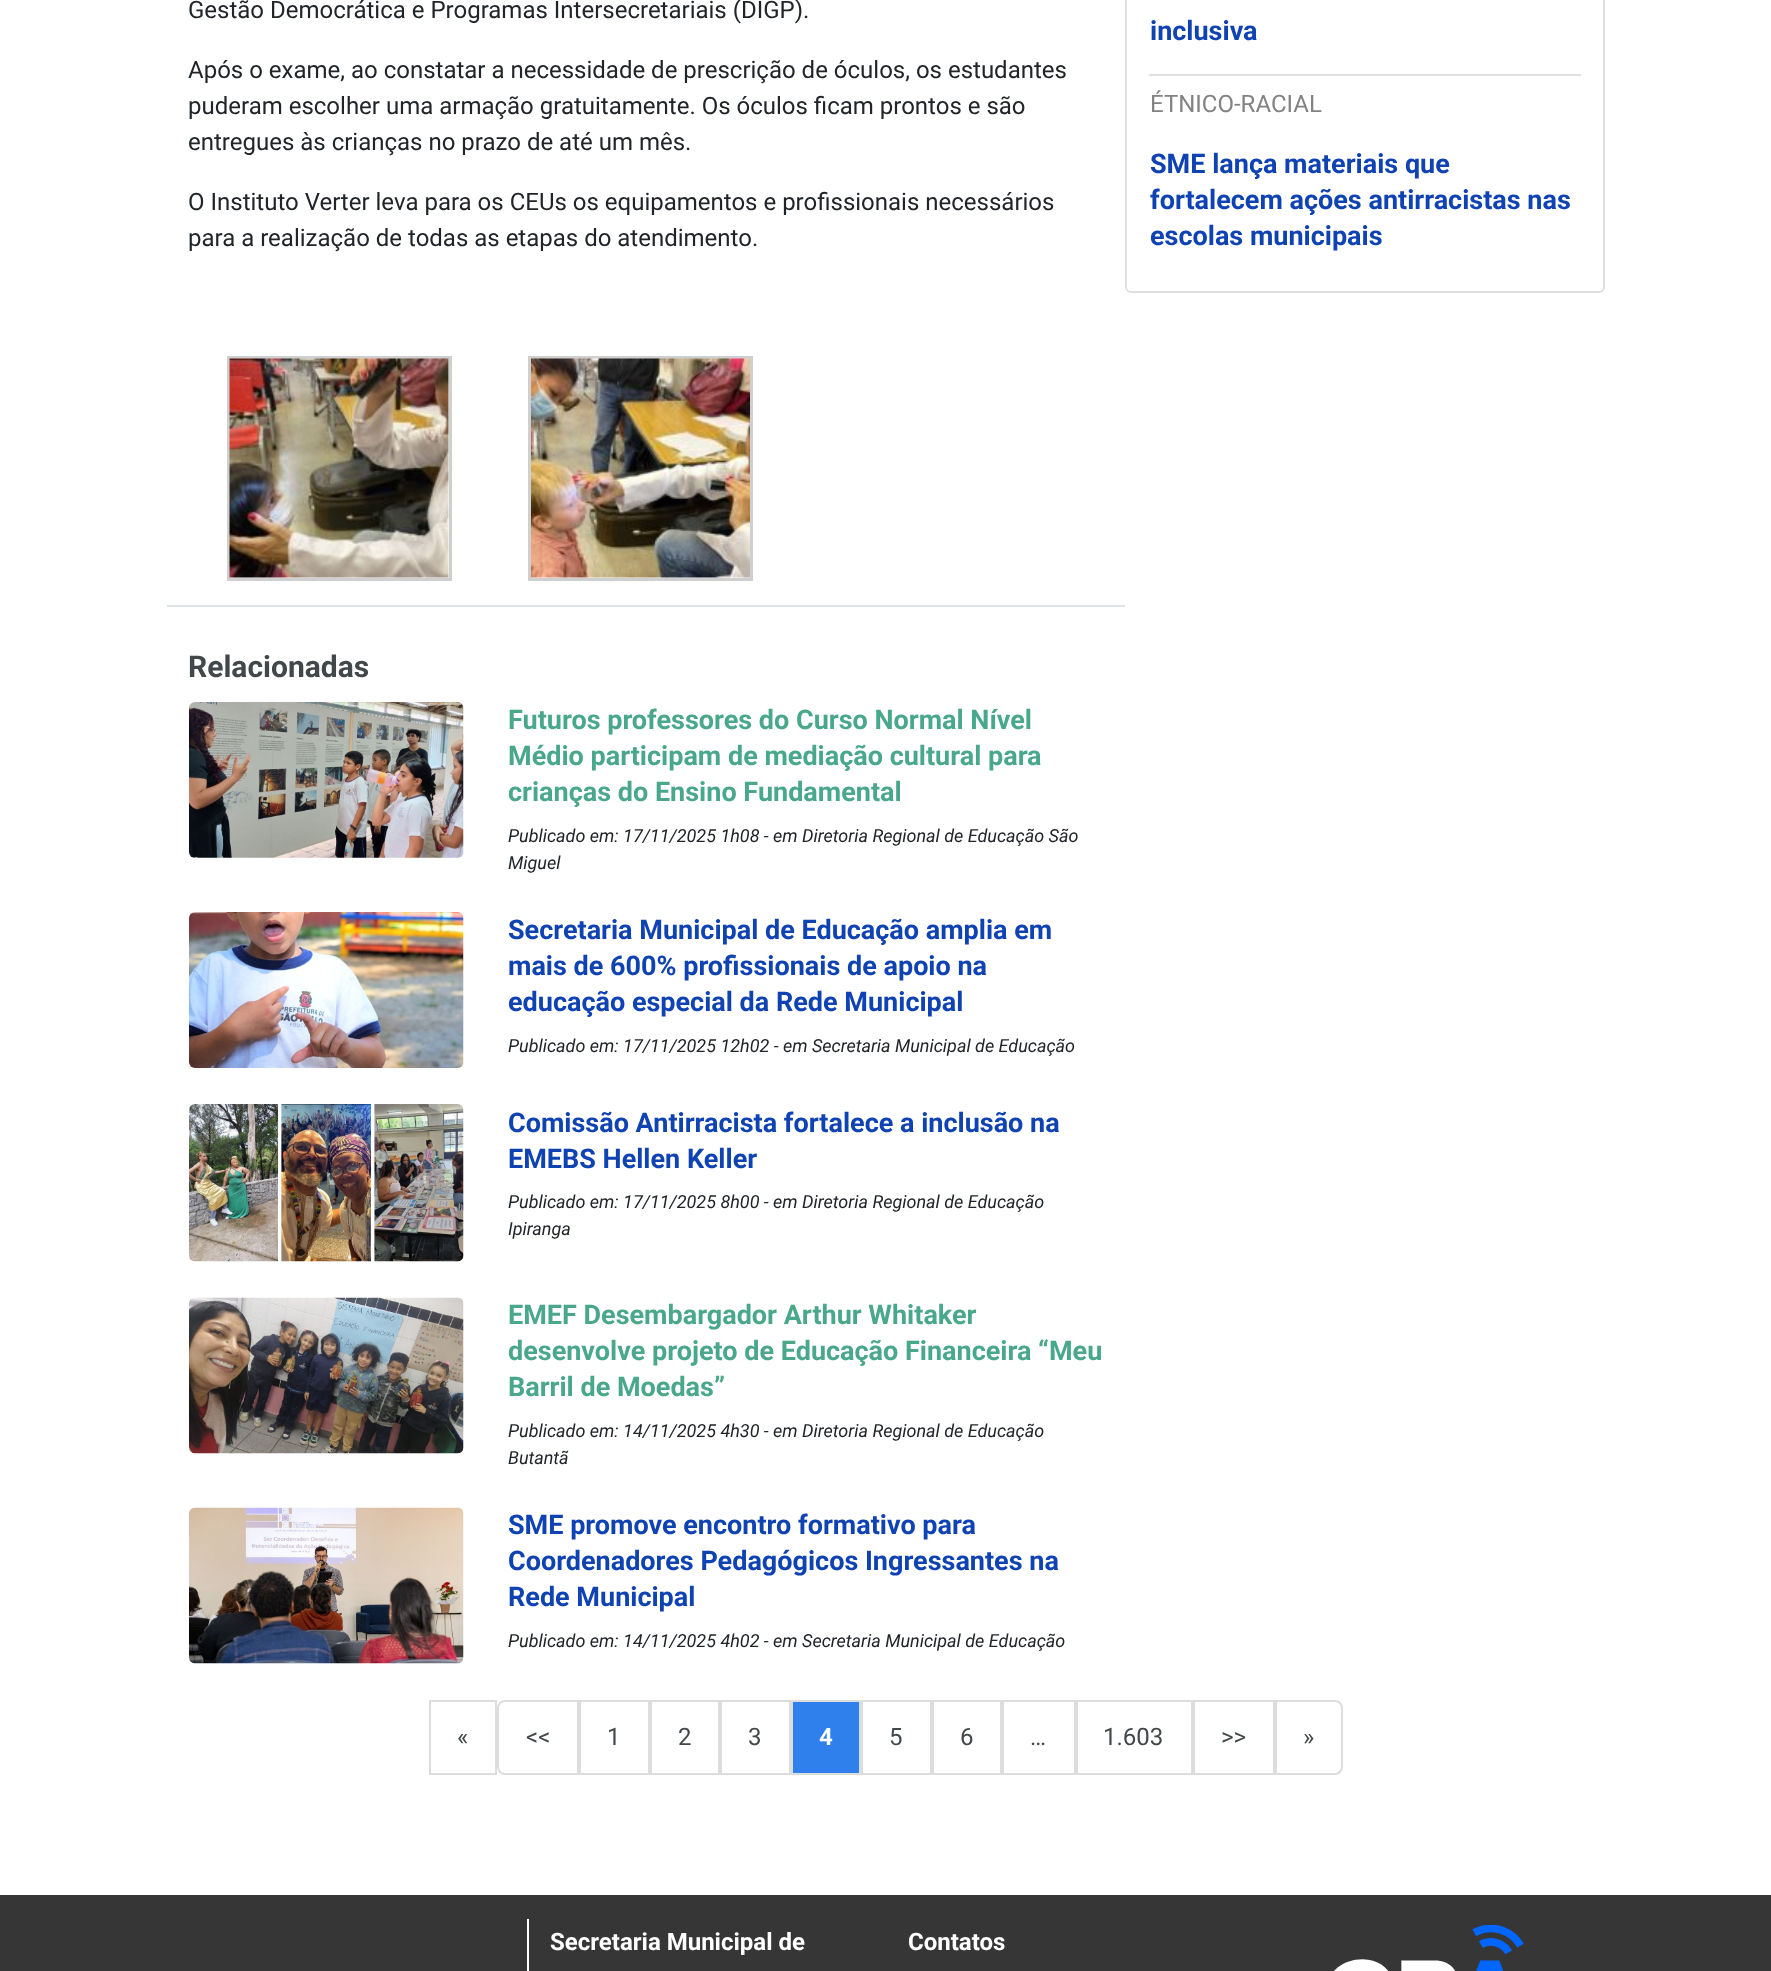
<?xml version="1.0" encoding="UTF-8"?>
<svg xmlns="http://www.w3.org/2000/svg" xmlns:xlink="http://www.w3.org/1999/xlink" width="1771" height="1971">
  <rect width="100%" height="100%" fill="#ffffff" />
  <rect x="167" y="605" width="958" height="2" fill="#dee2e6" />
  <rect x="228.5" y="357.5" width="222" height="222" fill="none" stroke="#cfcfcf" stroke-width="3" />
  <image x="229" y="358" width="220" height="220" xlink:href="image1.png" />
  <rect x="529.5" y="357.5" width="222" height="222" fill="none" stroke="#cfcfcf" stroke-width="3" />
  <image x="531" y="358" width="219" height="220" xlink:href="image2.png" />
  <rect x="1126" y="-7" width="478" height="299" rx="5" fill="none" stroke="#dfdfdf" stroke-width="2" />
  <rect x="1149" y="74" width="432" height="2" fill="#e0e0e0" />
  <image x="189" y="702" width="275" height="156" xlink:href="image3.png" />
  <image x="189" y="912" width="275" height="156" xlink:href="image4.png" />
  <image x="189" y="1104" width="275" height="158" xlink:href="image5.png" />
  <image x="189" y="1297" width="275" height="157" xlink:href="image6.png" />
  <image x="189" y="1507" width="275" height="157" xlink:href="image7.png" />
  <rect x="430" y="1701" width="66" height="73" fill="none" stroke="#dddddd" stroke-width="2" />
  <path d="M 505 1701 h 73 v 73 h -73 c -4 0 -7 -3 -7 -7 v -59 c 0 -4 3 -7 7 -7 z" fill="none" stroke="#dddddd" stroke-width="2" />
  <rect x="580" y="1701" width="69" height="73" fill="none" stroke="#dddddd" stroke-width="2" />
  <rect x="651" y="1701" width="68" height="73" fill="none" stroke="#dddddd" stroke-width="2" />
  <rect x="721" y="1701" width="69" height="73" fill="none" stroke="#dddddd" stroke-width="2" />
  <rect x="792" y="1701" width="68" height="73" fill="#2f80ed" stroke="#dddddd" stroke-width="2" />
  <rect x="862" y="1701" width="69" height="73" fill="none" stroke="#dddddd" stroke-width="2" />
  <rect x="933" y="1701" width="68" height="73" fill="none" stroke="#dddddd" stroke-width="2" />
  <rect x="1003" y="1701" width="72" height="73" fill="none" stroke="#dddddd" stroke-width="2" />
  <rect x="1077" y="1701" width="115" height="73" fill="none" stroke="#dddddd" stroke-width="2" />
  <rect x="1194" y="1701" width="80" height="73" fill="none" stroke="#dddddd" stroke-width="2" />
  <path d="M 1276 1701 h 59 c 4 0 7 3 7 7 v 59 c 0 4 -3 7 -7 7 h -59 z" fill="none" stroke="#dddddd" stroke-width="2" />
  <rect y="1895" width="1771" height="76" fill="#363636" />
  <rect x="527" y="1919" width="2" height="52" fill="#ffffff" />
  <image x="1334" y="1925" width="190" height="46" xlink:href="image8.png" />
  <text x="188" y="18" style="font-family: Roboto; font-size: 24px; fill: #212529">Gestão Democrática e Programas Intersecretariais (DIGP).</text>
  <text x="188" y="78" style="font-family: Roboto; font-size: 24px; fill: #212529">Após o exame, ao constatar a necessidade de prescrição de óculos, os estudantes</text>
  <text x="188" y="114" style="font-family: Roboto; font-size: 24px; fill: #212529">puderam escolher uma armação gratuitamente. Os óculos ficam prontos e são</text>
  <text x="188" y="150" style="font-family: Roboto; font-size: 24px; fill: #212529">entregues às crianças no prazo de até um mês.</text>
  <text x="188" y="210" style="font-family: Roboto; font-size: 24px; fill: #212529">O Instituto Verter leva para os CEUs os equipamentos e profissionais necessários</text>
  <text x="188" y="246" style="font-family: Roboto; font-size: 24px; fill: #212529">para a realização de todas as etapas do atendimento.</text>
  <text x="1150" y="40" style="font-family: Roboto; font-size: 27px; font-weight: bold; fill: #0f42b2">inclusiva</text>
  <text x="1150" y="112" style="font-family: Roboto; font-size: 24px; fill: #828282">ÉTNICO-RACIAL</text>
  <text x="1150" y="173" style="font-family: Roboto; font-size: 27px; font-weight: bold; fill: #0f42b2">SME lança materiais que</text>
  <text x="1150" y="209" style="font-family: Roboto; font-size: 27px; font-weight: bold; fill: #0f42b2">fortalecem ações antirracistas nas</text>
  <text x="1150" y="245" style="font-family: Roboto; font-size: 27px; font-weight: bold; fill: #0f42b2">escolas municipais</text>
  <text x="188" y="677" style="font-family: Roboto; font-size: 30px; font-weight: bold; fill: #42474a">Relacionadas</text>
  <text x="508" y="729" style="font-family: Roboto; font-size: 27px; font-weight: bold; fill: #49a88a">Futuros professores do Curso Normal Nível</text>
  <text x="508" y="765" style="font-family: Roboto; font-size: 27px; font-weight: bold; fill: #49a88a">Médio participam de mediação cultural para</text>
  <text x="508" y="801" style="font-family: Roboto; font-size: 27px; font-weight: bold; fill: #49a88a">crianças do Ensino Fundamental</text>
  <text x="508" y="842" style="font-family: Roboto; font-size: 18px; font-style: italic; fill: #212529">Publicado em: 17/11/2025 1h08 - em Diretoria Regional de Educação São</text>
  <text x="508" y="869" style="font-family: Roboto; font-size: 18px; font-style: italic; fill: #212529">Miguel</text>
  <text x="508" y="939" style="font-family: Roboto; font-size: 27px; font-weight: bold; fill: #0f42b2">Secretaria Municipal de Educação amplia em</text>
  <text x="508" y="975" style="font-family: Roboto; font-size: 27px; font-weight: bold; fill: #0f42b2">mais de 600% profissionais de apoio na</text>
  <text x="508" y="1011" style="font-family: Roboto; font-size: 27px; font-weight: bold; fill: #0f42b2">educação especial da Rede Municipal</text>
  <text x="508" y="1052" style="font-family: Roboto; font-size: 18px; font-style: italic; fill: #212529">Publicado em: 17/11/2025 12h02 - em Secretaria Municipal de Educação</text>
  <text x="508" y="1132" style="font-family: Roboto; font-size: 27px; font-weight: bold; fill: #0f42b2">Comissão Antirracista fortalece a inclusão na</text>
  <text x="508" y="1168" style="font-family: Roboto; font-size: 27px; font-weight: bold; fill: #0f42b2">EMEBS Hellen Keller</text>
  <text x="508" y="1208" style="font-family: Roboto; font-size: 18px; font-style: italic; fill: #212529">Publicado em: 17/11/2025 8h00 - em Diretoria Regional de Educação</text>
  <text x="508" y="1235" style="font-family: Roboto; font-size: 18px; font-style: italic; fill: #212529">Ipiranga</text>
  <text x="508" y="1324" style="font-family: Roboto; font-size: 27px; font-weight: bold; fill: #49a88a">EMEF Desembargador Arthur Whitaker</text>
  <text x="508" y="1360" style="font-family: Roboto; font-size: 27px; font-weight: bold; fill: #49a88a">desenvolve projeto de Educação Financeira “Meu</text>
  <text x="508" y="1396" style="font-family: Roboto; font-size: 27px; font-weight: bold; fill: #49a88a">Barril de Moedas”</text>
  <text x="508" y="1437" style="font-family: Roboto; font-size: 18px; font-style: italic; fill: #212529">Publicado em: 14/11/2025 4h30 - em Diretoria Regional de Educação</text>
  <text x="508" y="1464" style="font-family: Roboto; font-size: 18px; font-style: italic; fill: #212529">Butantã</text>
  <text x="508" y="1534" style="font-family: Roboto; font-size: 27px; font-weight: bold; fill: #0f42b2">SME promove encontro formativo para</text>
  <text x="508" y="1570" style="font-family: Roboto; font-size: 27px; font-weight: bold; fill: #0f42b2">Coordenadores Pedagógicos Ingressantes na</text>
  <text x="508" y="1606" style="font-family: Roboto; font-size: 27px; font-weight: bold; fill: #0f42b2">Rede Municipal</text>
  <text x="508" y="1647" style="font-family: Roboto; font-size: 18px; font-style: italic; fill: #212529">Publicado em: 14/11/2025 4h02 - em Secretaria Municipal de Educação</text>
  <text x="457" y="1745" style="font-family: Roboto; font-size: 24px; fill: #42474a">«</text>
  <text x="526" y="1745" style="font-family: Roboto; font-size: 24px; fill: #42474a">&lt;&lt;</text>
  <text x="607" y="1745" style="font-family: Roboto; font-size: 24px; fill: #42474a">1</text>
  <text x="678" y="1745" style="font-family: Roboto; font-size: 24px; fill: #42474a">2</text>
  <text x="748" y="1745" style="font-family: Roboto; font-size: 24px; fill: #42474a">3</text>
  <text x="819" y="1745" style="font-family: Roboto; font-size: 24px; font-weight: bold; fill: #ffffff">4</text>
  <text x="889" y="1745" style="font-family: Roboto; font-size: 24px; fill: #42474a">5</text>
  <text x="960" y="1745" style="font-family: Roboto; font-size: 24px; fill: #42474a">6</text>
  <text x="1030" y="1745" style="font-family: Roboto; font-size: 24px; fill: #42474a">…</text>
  <text x="1103" y="1745" style="font-family: Roboto; font-size: 24px; fill: #42474a">1.603</text>
  <text x="1221" y="1745" style="font-family: Roboto; font-size: 24px; fill: #42474a">&gt;&gt;</text>
  <text x="1303" y="1745" style="font-family: Roboto; font-size: 24px; fill: #42474a">»</text>
  <text x="550" y="1950" style="font-family: Roboto; font-size: 24px; font-weight: bold; fill: #ffffff">Secretaria Municipal de</text>
  <text x="908" y="1950" style="font-family: Roboto; font-size: 24px; font-weight: bold; fill: #ffffff">Contatos</text>
</svg>
